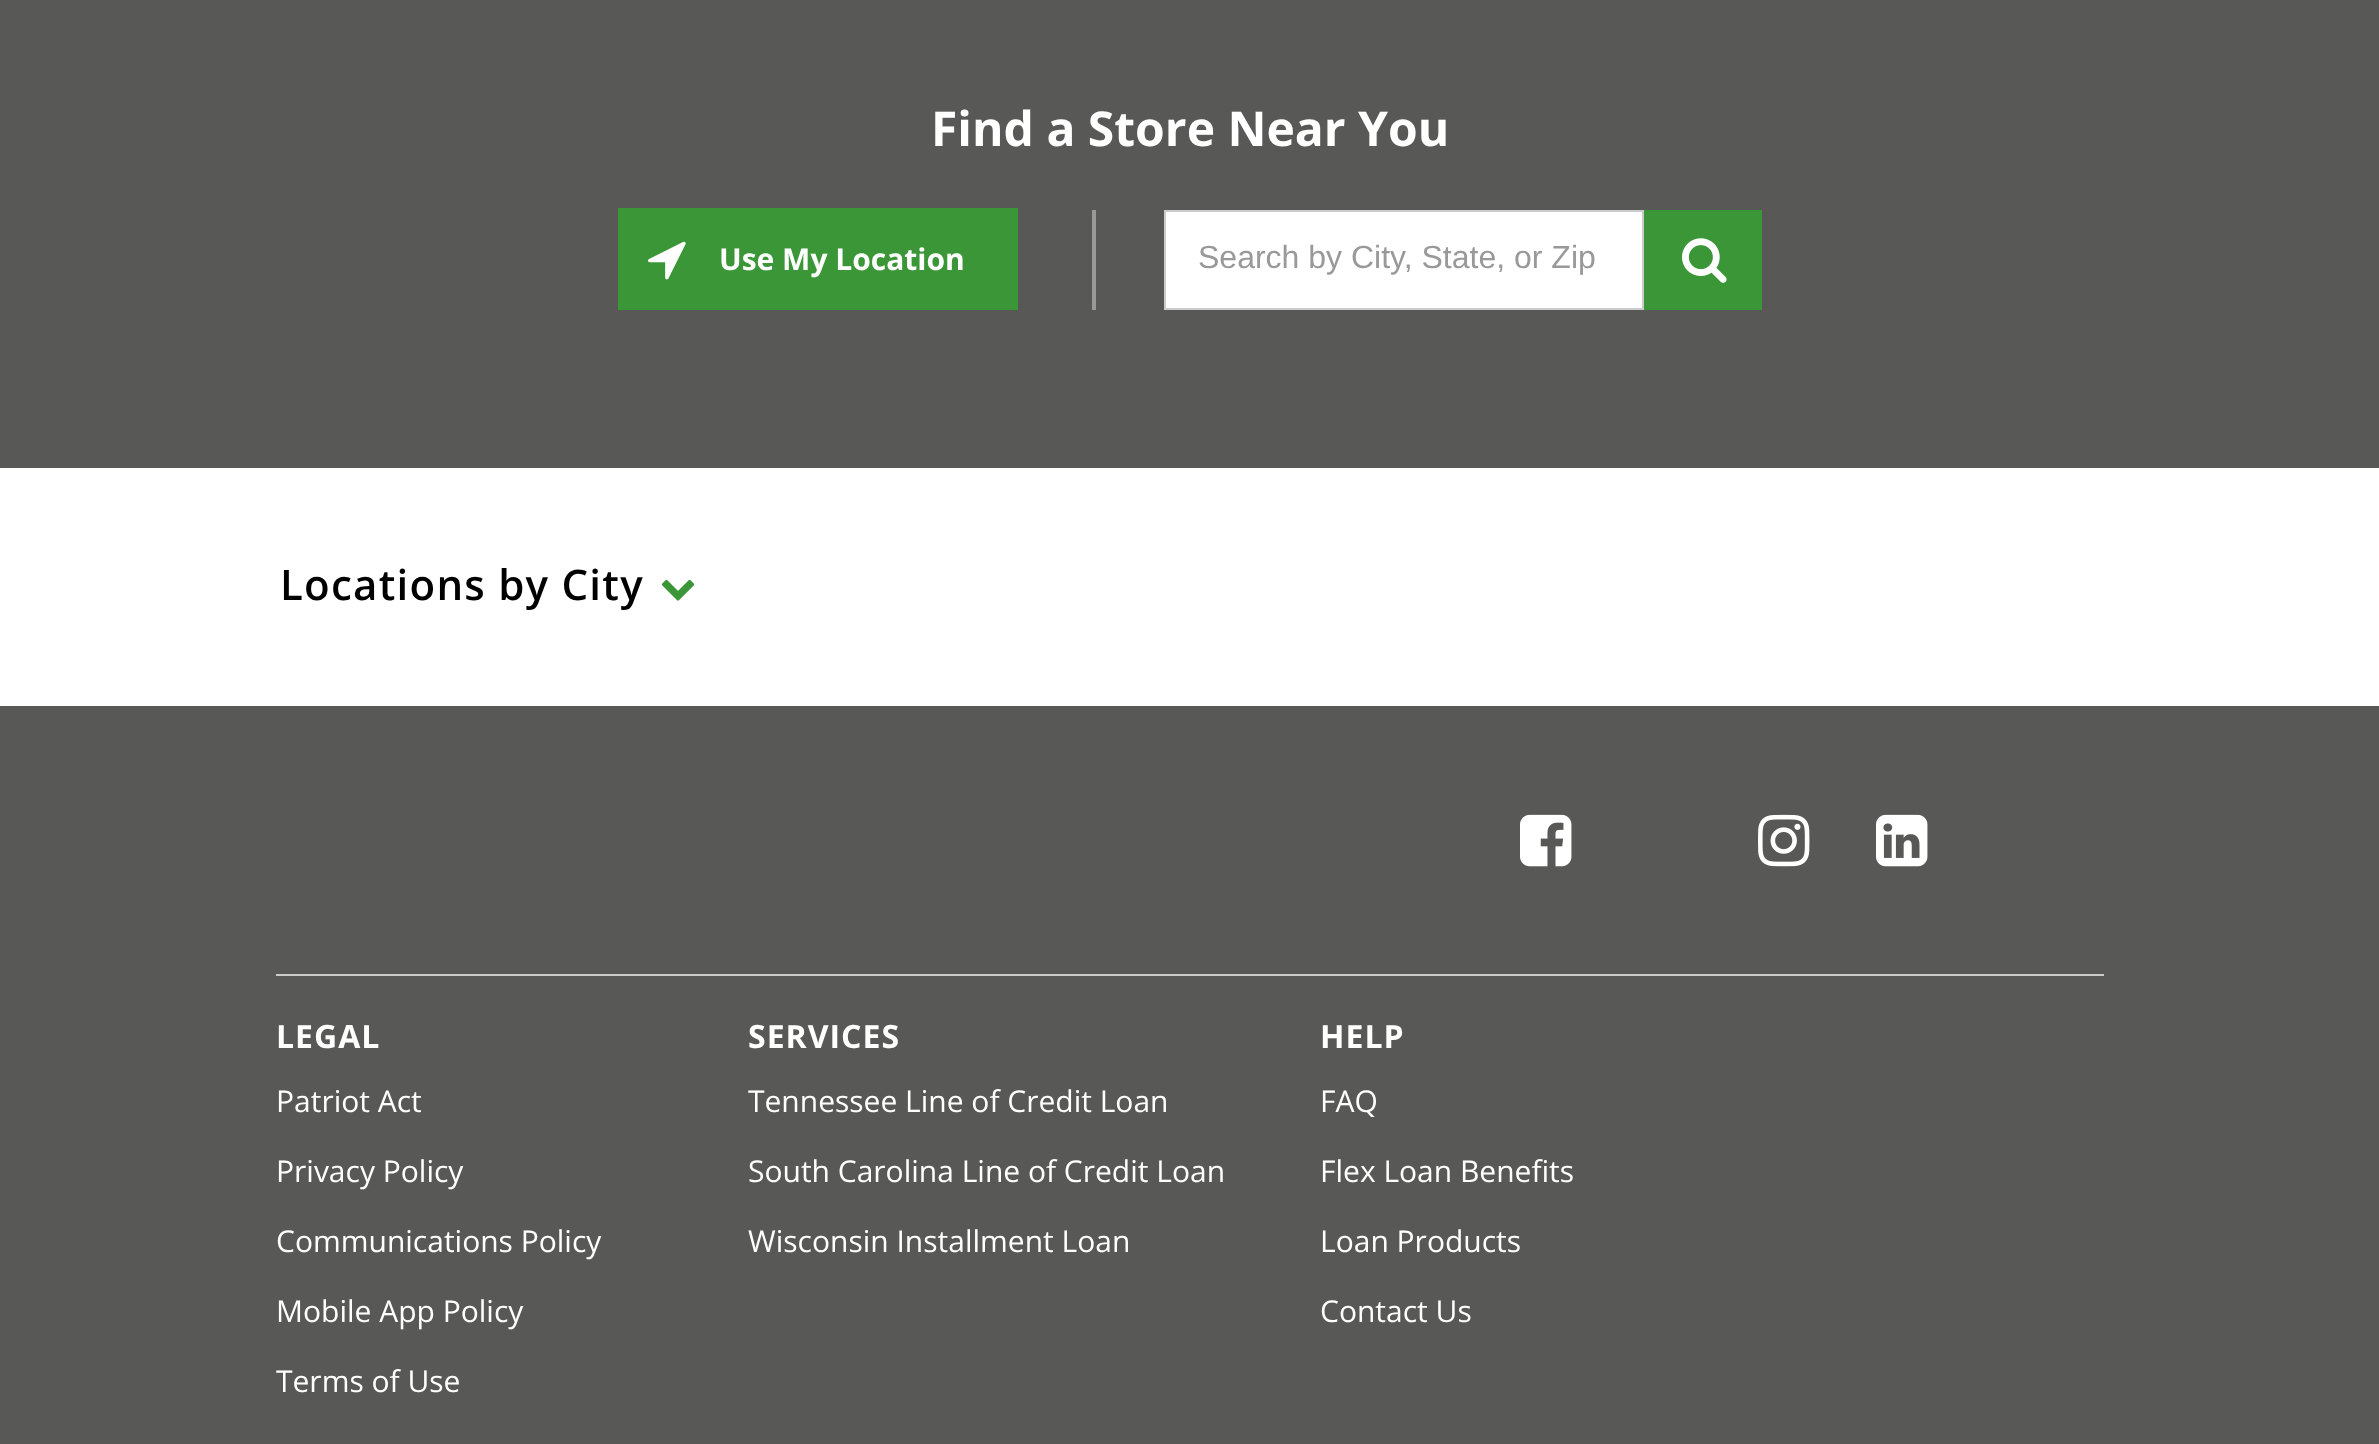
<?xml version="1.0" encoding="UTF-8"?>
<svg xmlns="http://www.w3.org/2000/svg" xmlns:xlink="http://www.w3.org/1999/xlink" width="2379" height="1444">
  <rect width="100%" height="100%" fill="#ffffff" />
  <rect width="2379" height="468" fill="#585856" />
  <rect x="618" y="208" width="400" height="102" fill="#3b9637" />
  <image x="648" y="241" width="38" height="39" xlink:href="image1.png" />
  <rect x="1092" y="210" width="4" height="100" fill="#999999" />
  <rect x="1165" y="211" width="478" height="98" fill="#ffffff" stroke="#cccccc" stroke-width="2" />
  <rect x="1644" y="210" width="118" height="100" fill="#3b9637" />
  <image x="1682" y="238" width="45" height="45" xlink:href="image2.png" />
  <image x="661" y="579" width="34" height="22" xlink:href="image3.png" />
  <rect y="706" width="2379" height="738" fill="#585856" />
  <image x="1520" y="814" width="52" height="53" xlink:href="image4.png" />
  <image x="1758" y="814" width="52" height="53" xlink:href="image5.png" />
  <image x="1876" y="814" width="52" height="53" xlink:href="image6.png" />
  <rect x="276" y="974" width="1828" height="2" fill="#cccccc" />
  <text x="931" y="146" style="font-family: Open Sans; font-size: 48px; font-weight: bold; fill: #ffffff">Find a Store Near You</text>
  <text x="719" y="270" style="font-family: Open Sans; font-size: 30px; font-weight: bold; fill: #ffffff">Use My Location</text>
  <text x="1198" y="268" style="font-family: Liberation Sans; font-size: 32px; fill: #999999">Search by City, State, or Zip</text>
  <text x="280" y="600" style="font-family: Open Sans; font-size: 42px; font-weight: 600; letter-spacing: 1.25px; fill: #000000">Locations by City</text>
  <text x="276" y="1048" style="font-family: Open Sans; font-size: 32px; font-weight: bold; letter-spacing: 1px; fill: #ffffff">LEGAL</text>
  <text x="276" y="1112" style="font-family: Open Sans; font-size: 30px; fill: #ffffff">Patriot Act</text>
  <text x="276" y="1182" style="font-family: Open Sans; font-size: 30px; fill: #ffffff">Privacy Policy</text>
  <text x="276" y="1252" style="font-family: Open Sans; font-size: 30px; fill: #ffffff">Communications Policy</text>
  <text x="276" y="1322" style="font-family: Open Sans; font-size: 30px; fill: #ffffff">Mobile App Policy</text>
  <text x="276" y="1392" style="font-family: Open Sans; font-size: 30px; fill: #ffffff">Terms of Use</text>
  <text x="748" y="1048" style="font-family: Open Sans; font-size: 32px; font-weight: bold; letter-spacing: 1px; fill: #ffffff">SERVICES</text>
  <text x="748" y="1112" style="font-family: Open Sans; font-size: 30px; fill: #ffffff">Tennessee Line of Credit Loan</text>
  <text x="748" y="1182" style="font-family: Open Sans; font-size: 30px; fill: #ffffff">South Carolina Line of Credit Loan</text>
  <text x="748" y="1252" style="font-family: Open Sans; font-size: 30px; fill: #ffffff">Wisconsin Installment Loan</text>
  <text x="1320" y="1048" style="font-family: Open Sans; font-size: 32px; font-weight: bold; letter-spacing: 1px; fill: #ffffff">HELP</text>
  <text x="1320" y="1112" style="font-family: Open Sans; font-size: 30px; fill: #ffffff">FAQ</text>
  <text x="1320" y="1182" style="font-family: Open Sans; font-size: 30px; fill: #ffffff">Flex Loan Benefits</text>
  <text x="1320" y="1252" style="font-family: Open Sans; font-size: 30px; fill: #ffffff">Loan Products</text>
  <text x="1320" y="1322" style="font-family: Open Sans; font-size: 30px; fill: #ffffff">Contact Us</text>
</svg>
